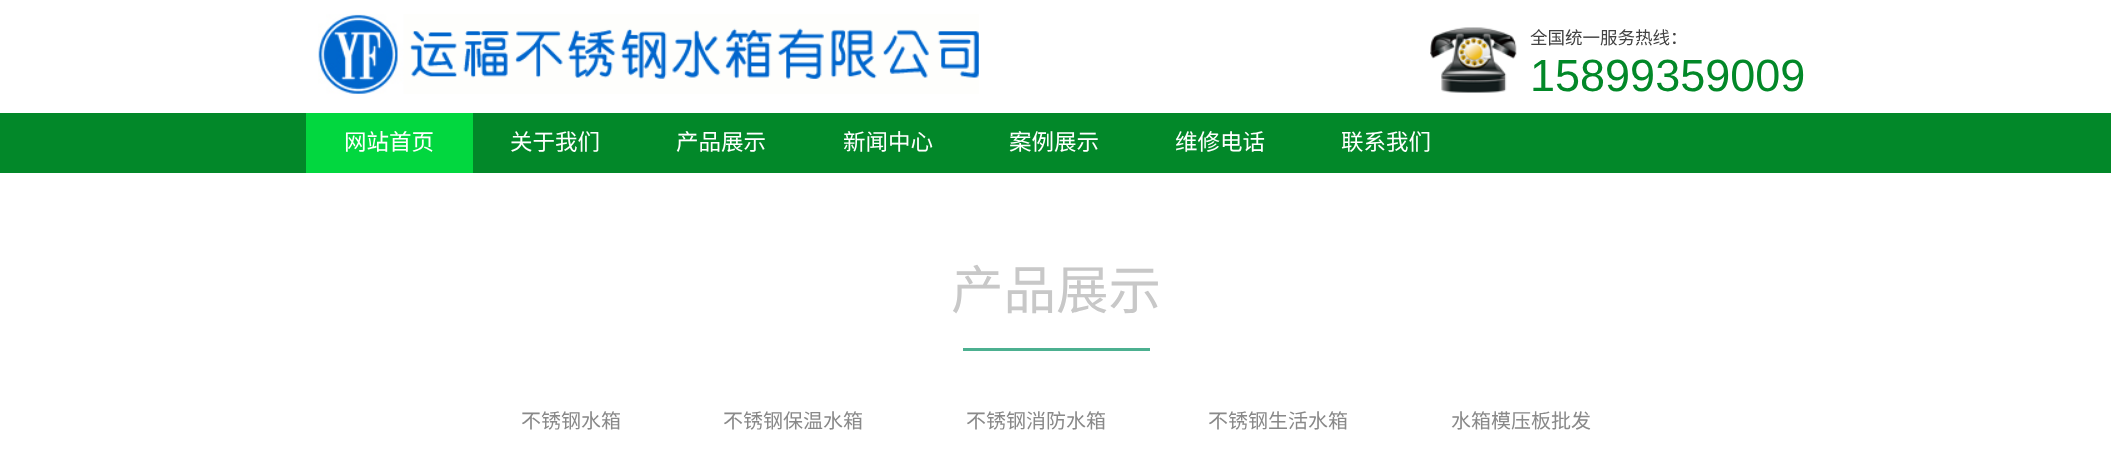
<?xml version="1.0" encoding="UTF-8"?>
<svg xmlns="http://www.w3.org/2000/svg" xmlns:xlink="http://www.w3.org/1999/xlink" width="2111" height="464">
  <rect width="100%" height="100%" fill="#ffffff" />
  <image x="318" y="14" width="661" height="80" xlink:href="image1.png" />
  <image x="1430" y="27" width="87" height="66" xlink:href="image2.png" />
  <rect y="113" width="2111" height="60" fill="#028829" />
  <rect x="306" y="113" width="167" height="60" fill="#02d73f" />
  <rect x="963" y="348" width="187" height="3" fill="#4cb090" />
  <text x="1530" y="44" style="font-family: Noto Sans CJK SC; font-size: 17.5px; fill: #414141">全国统一服务热线：</text>
  <text x="1530" y="91" style="font-family: Liberation Sans; font-size: 45px; fill: #028828">15899359009</text>
  <text x="344" y="150" style="font-family: Noto Sans CJK SC; font-size: 22.5px; fill: #ffffff">网站首页</text>
  <text x="510" y="150" style="font-family: Noto Sans CJK SC; font-size: 22.5px; fill: #ffffff">关于我们</text>
  <text x="676" y="150" style="font-family: Noto Sans CJK SC; font-size: 22.5px; fill: #ffffff">产品展示</text>
  <text x="843" y="150" style="font-family: Noto Sans CJK SC; font-size: 22.5px; fill: #ffffff">新闻中心</text>
  <text x="1009" y="150" style="font-family: Noto Sans CJK SC; font-size: 22.5px; fill: #ffffff">案例展示</text>
  <text x="1175" y="150" style="font-family: Noto Sans CJK SC; font-size: 22.5px; fill: #ffffff">维修电话</text>
  <text x="1341" y="150" style="font-family: Noto Sans CJK SC; font-size: 22.5px; fill: #ffffff">联系我们</text>
  <text x="951" y="309" style="font-family: Noto Sans CJK SC; font-size: 52.5px; fill: #c8c8c8">产品展示</text>
  <text x="521" y="428" style="font-family: Noto Sans CJK SC; font-size: 20px; fill: #898989">不锈钢水箱</text>
  <text x="723" y="428" style="font-family: Noto Sans CJK SC; font-size: 20px; fill: #898989">不锈钢保温水箱</text>
  <text x="966" y="428" style="font-family: Noto Sans CJK SC; font-size: 20px; fill: #898989">不锈钢消防水箱</text>
  <text x="1208" y="428" style="font-family: Noto Sans CJK SC; font-size: 20px; fill: #898989">不锈钢生活水箱</text>
  <text x="1451" y="428" style="font-family: Noto Sans CJK SC; font-size: 20px; fill: #898989">水箱模压板批发</text>
</svg>
